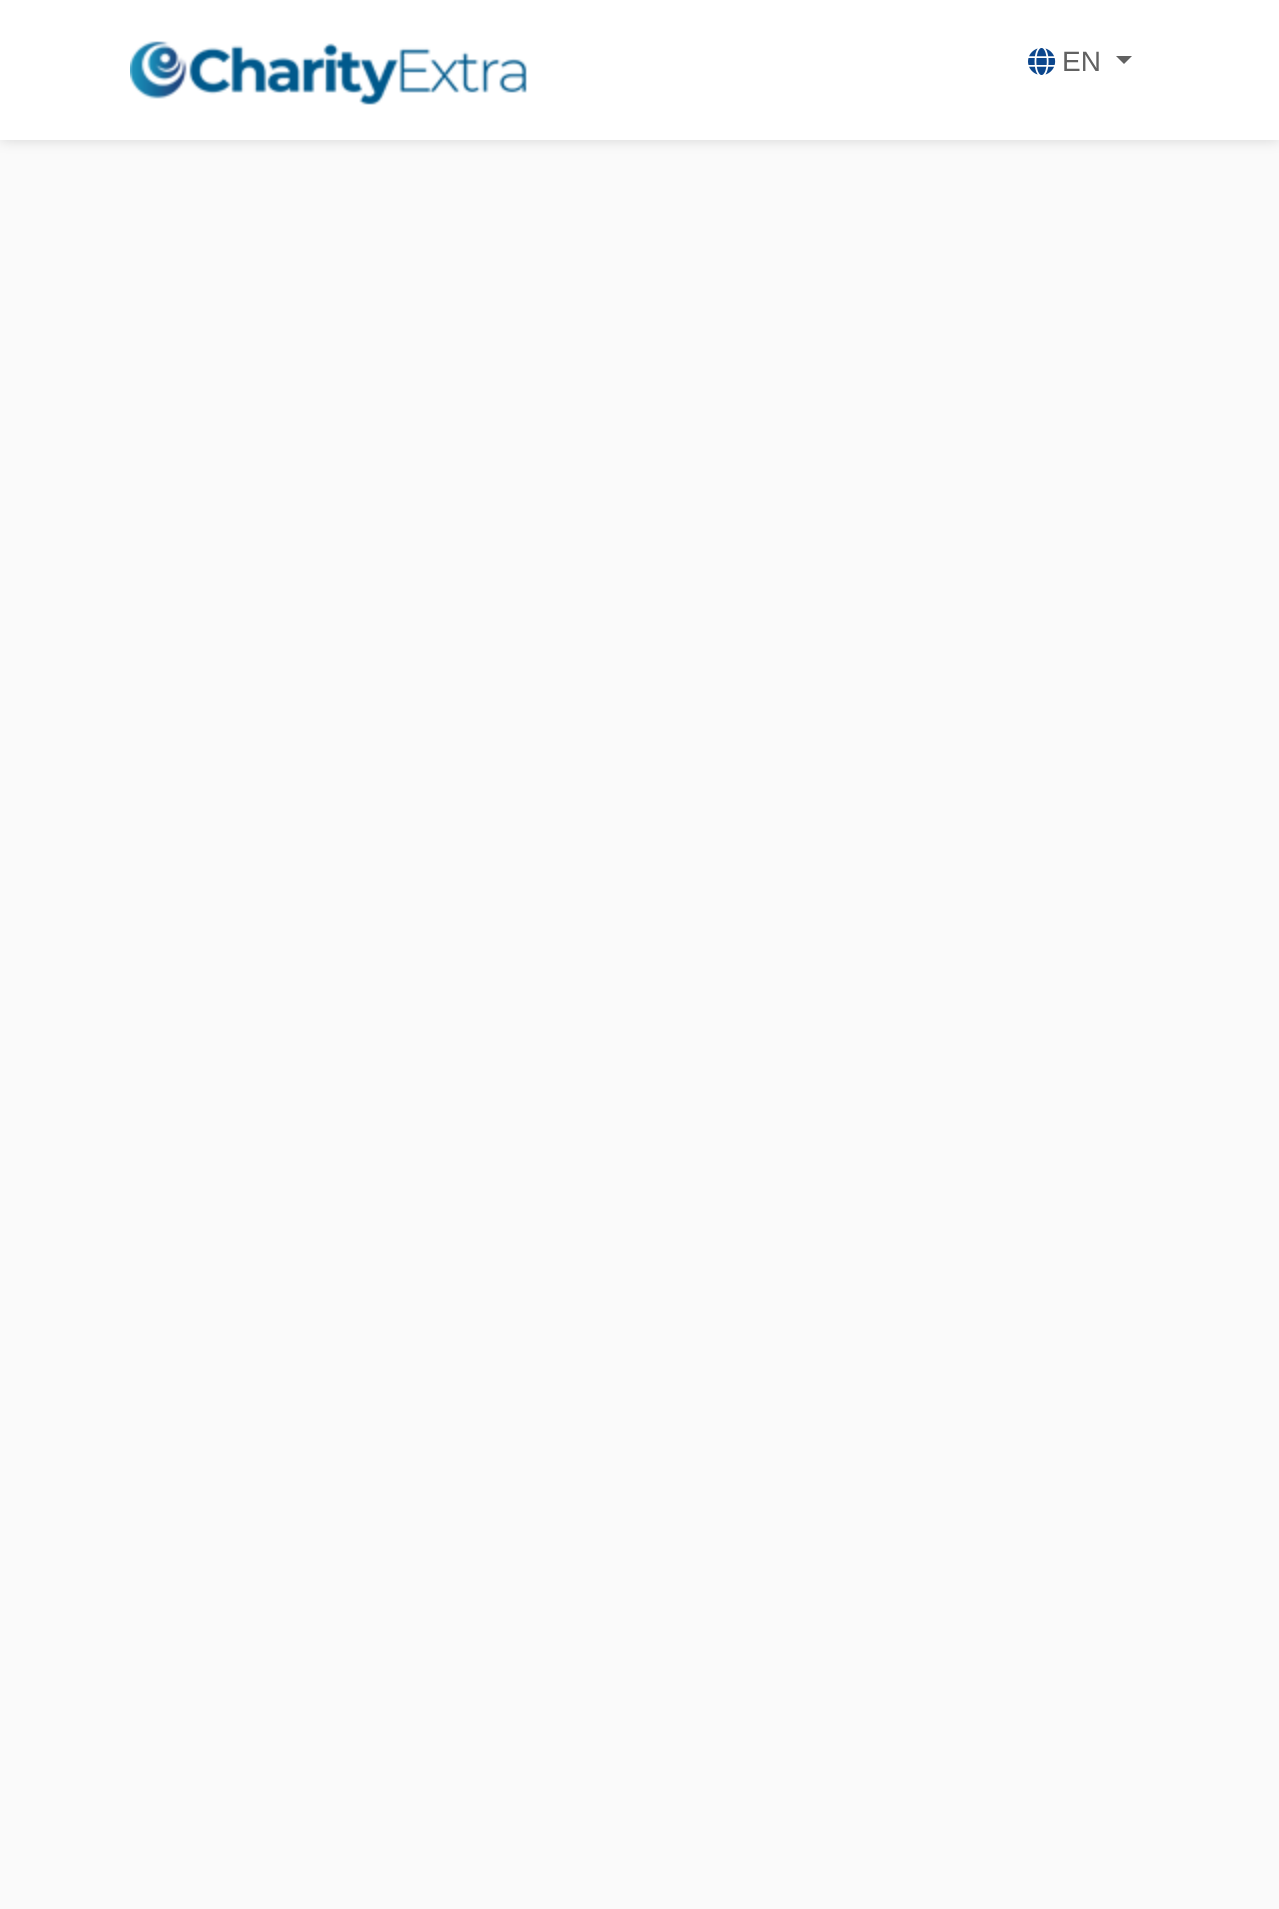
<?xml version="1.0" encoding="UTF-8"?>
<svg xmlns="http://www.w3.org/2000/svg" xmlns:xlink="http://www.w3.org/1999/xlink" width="1279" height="1909">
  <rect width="100%" height="100%" fill="#fafafa" />
  <rect width="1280" height="140" fill="#000000" fill-opacity="0.15" filter="blur(7px)" />
  <rect width="1279" height="140" fill="#ffffff" />
  <image x="130" y="41" width="397" height="64" xlink:href="image1.png" />
  <image x="1028" y="48" width="28" height="27" xlink:href="image2.png" />
  <path d="M 1116 56 h 16 l -8 8 z" fill="#616161" />
  <text x="1062" y="71" style="font-family: Liberation Sans; font-size: 28px; fill: #616161">EN</text>
</svg>
